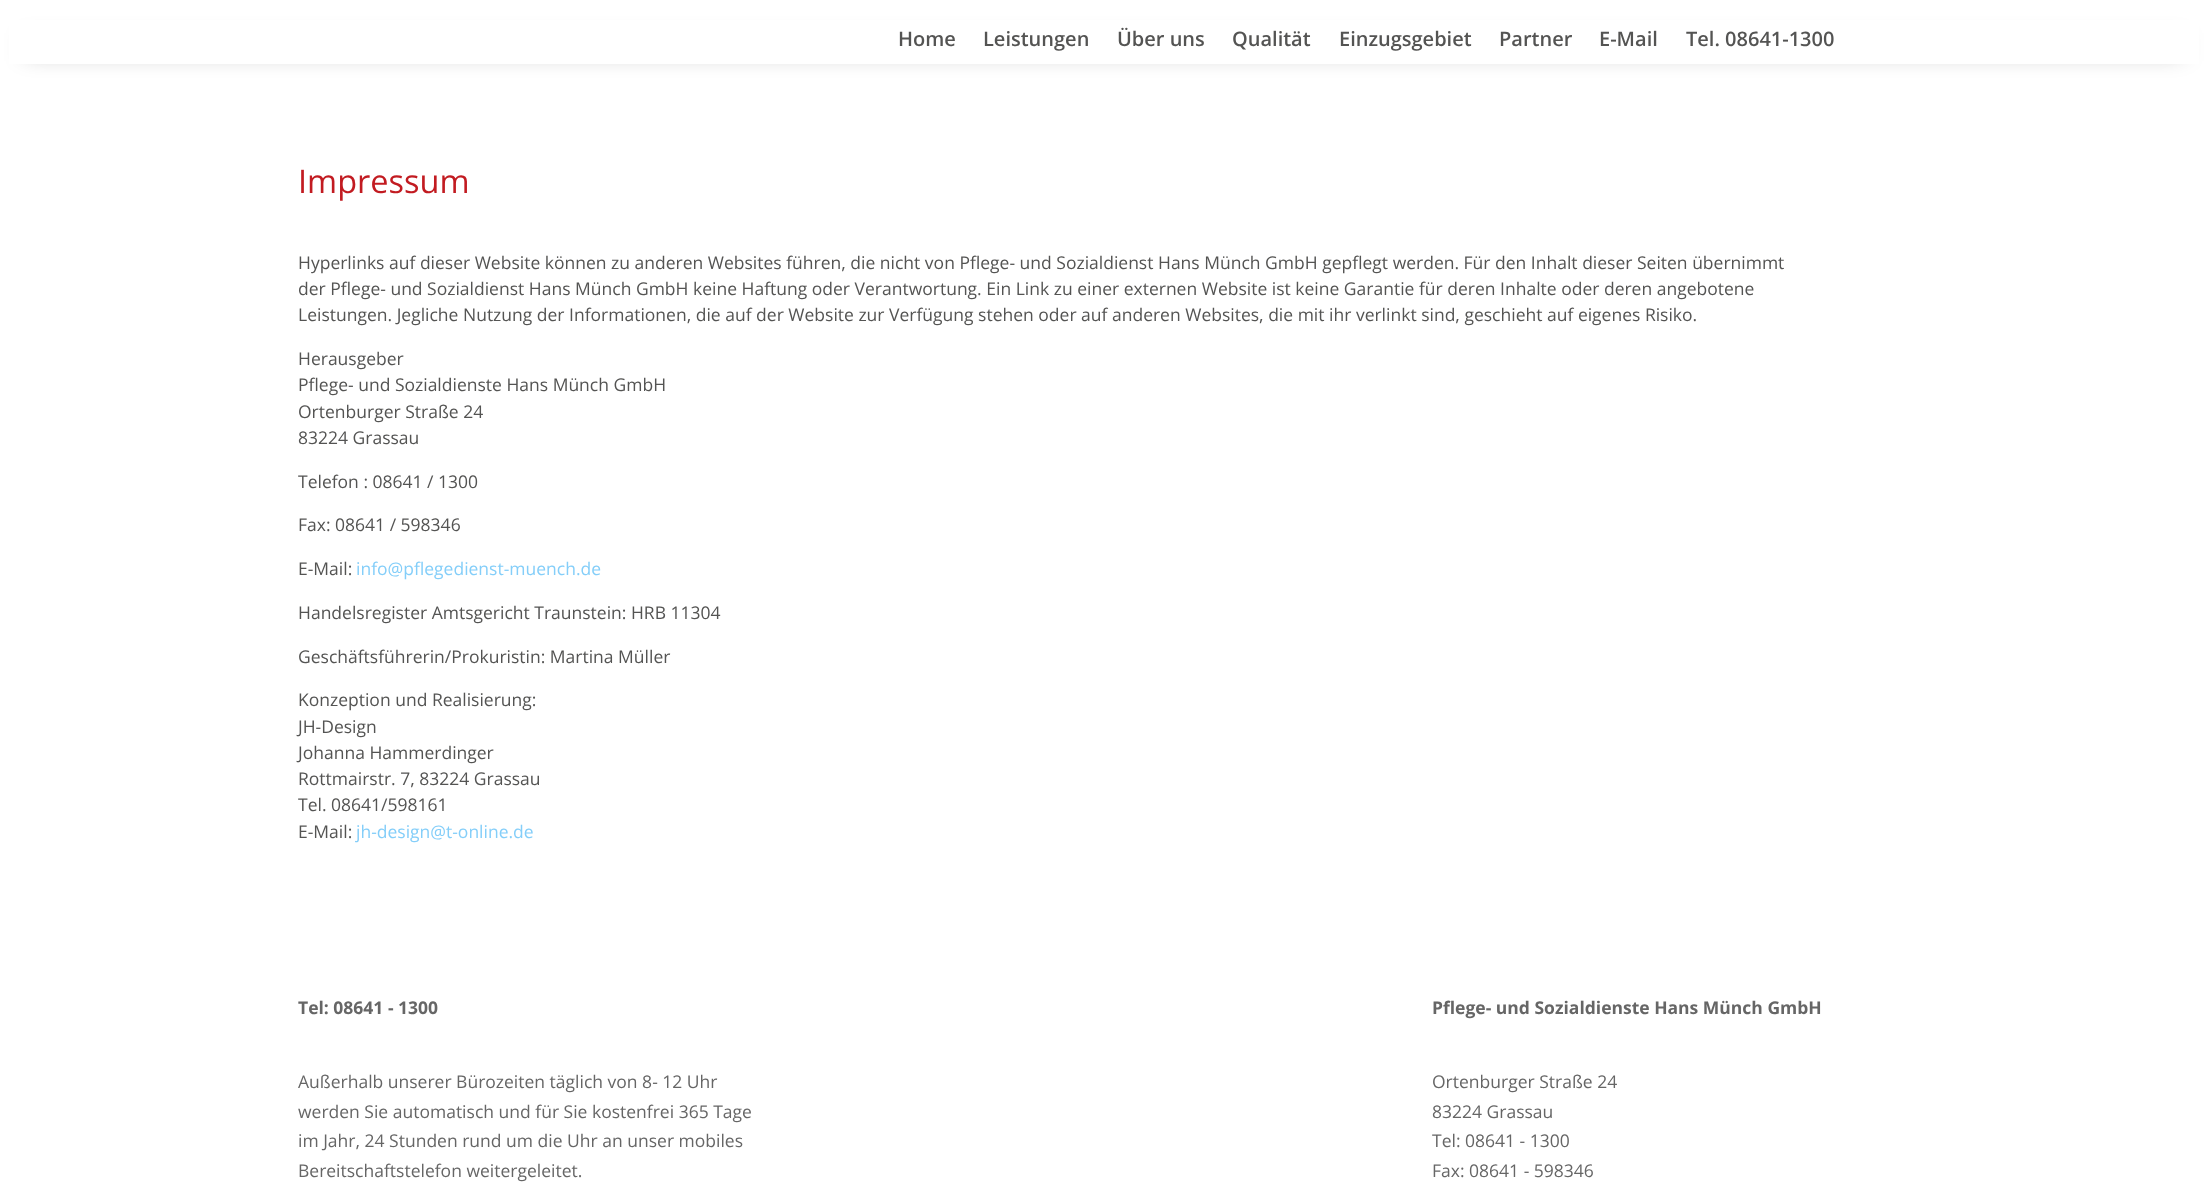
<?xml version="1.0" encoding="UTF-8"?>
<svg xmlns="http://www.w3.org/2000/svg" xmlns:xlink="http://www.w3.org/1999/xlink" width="2207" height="1200">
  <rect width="100%" height="100%" fill="#ffffff" />
  <rect x="25" y="40" width="2158" height="14" fill="#000000" fill-opacity="0.3" filter="blur(11px)" />
  <rect x="9" y="20" width="2190" height="44" fill="#ffffff" />
  <text x="898" y="46" style="font-family: Open Sans; font-size: 20px; font-weight: 600; fill: #545453">Home</text>
  <text x="983" y="46" style="font-family: Open Sans; font-size: 20px; font-weight: 600; fill: #545453">Leistungen</text>
  <text x="1117" y="46" style="font-family: Open Sans; font-size: 20px; font-weight: 600; fill: #545453">Über uns</text>
  <text x="1232" y="46" style="font-family: Open Sans; font-size: 20px; font-weight: 600; fill: #545453">Qualität</text>
  <text x="1339" y="46" style="font-family: Open Sans; font-size: 20px; font-weight: 600; fill: #545453">Einzugsgebiet</text>
  <text x="1499" y="46" style="font-family: Open Sans; font-size: 20px; font-weight: 600; fill: #545453">Partner</text>
  <text x="1599" y="46" style="font-family: Open Sans; font-size: 20px; font-weight: 600; fill: #545453">E-Mail</text>
  <text x="1686" y="46" style="font-family: Open Sans; font-size: 20px; font-weight: 600; fill: #545453">Tel. 08641-1300</text>
  <text x="298" y="193" style="font-family: Open Sans; font-size: 32.5px; fill: #c21b21">Impressum</text>
  <text x="298" y="269" style="font-family: Open Sans; font-size: 17.5px; fill: #545453">Hyperlinks auf dieser Website können zu anderen Websites führen, die nicht von Pflege- und Sozialdienst Hans Münch GmbH gepflegt werden. Für den Inhalt dieser Seiten übernimmt</text>
  <text x="298" y="295" style="font-family: Open Sans; font-size: 17.5px; fill: #545453">der Pflege- und Sozialdienst Hans Münch GmbH keine Haftung oder Verantwortung. Ein Link zu einer externen Website ist keine Garantie für deren Inhalte oder deren angebotene</text>
  <text x="298" y="321" style="font-family: Open Sans; font-size: 17.5px; fill: #545453">Leistungen. Jegliche Nutzung der Informationen, die auf der Website zur Verfügung stehen oder auf anderen Websites, die mit ihr verlinkt sind, geschieht auf eigenes Risiko.</text>
  <text x="298" y="365" style="font-family: Open Sans; font-size: 17.5px; fill: #545453">Herausgeber</text>
  <text x="298" y="391" style="font-family: Open Sans; font-size: 17.5px; fill: #545453">Pflege- und Sozialdienste Hans Münch GmbH</text>
  <text x="298" y="418" style="font-family: Open Sans; font-size: 17.5px; fill: #545453">Ortenburger Straße 24</text>
  <text x="298" y="444" style="font-family: Open Sans; font-size: 17.5px; fill: #545453">83224 Grassau</text>
  <text x="298" y="488" style="font-family: Open Sans; font-size: 17.5px; fill: #545453">Telefon : 08641 / 1300</text>
  <text x="298" y="531" style="font-family: Open Sans; font-size: 17.5px; fill: #545453">Fax: 08641 / 598346</text>
  <text x="298" y="575" style="font-family: Open Sans; font-size: 17.5px; fill: #545453">E-Mail:</text>
  <text x="356" y="575" style="font-family: Open Sans; font-size: 17.5px; fill: #84cef9">info@pflegedienst-muench.de</text>
  <text x="298" y="619" style="font-family: Open Sans; font-size: 17.5px; fill: #545453">Handelsregister Amtsgericht Traunstein: HRB 11304</text>
  <text x="298" y="663" style="font-family: Open Sans; font-size: 17.5px; fill: #545453">Geschäftsführerin/Prokuristin: Martina Müller</text>
  <text x="298" y="706" style="font-family: Open Sans; font-size: 17.5px; fill: #545453">Konzeption und Realisierung:</text>
  <text x="298" y="733" style="font-family: Open Sans; font-size: 17.5px; fill: #545453">JH-Design</text>
  <text x="298" y="759" style="font-family: Open Sans; font-size: 17.5px; fill: #545453">Johanna Hammerdinger</text>
  <text x="298" y="785" style="font-family: Open Sans; font-size: 17.5px; fill: #545453">Rottmairstr. 7, 83224 Grassau</text>
  <text x="298" y="811" style="font-family: Open Sans; font-size: 17.5px; fill: #545453">Tel. 08641/598161</text>
  <text x="298" y="838" style="font-family: Open Sans; font-size: 17.5px; fill: #545453">E-Mail:</text>
  <text x="356" y="838" style="font-family: Open Sans; font-size: 17.5px; fill: #84cef9">jh-design@t-online.de</text>
  <text x="298" y="1014" style="font-family: Open Sans; font-size: 17.5px; font-weight: bold; fill: #666666">Tel: 08641 - 1300</text>
  <text x="298" y="1088" style="font-family: Open Sans; font-size: 17.5px; fill: #666666">Außerhalb unserer Bürozeiten täglich von 8- 12 Uhr</text>
  <text x="298" y="1118" style="font-family: Open Sans; font-size: 17.5px; fill: #666666">werden Sie automatisch und für Sie kostenfrei 365 Tage</text>
  <text x="298" y="1147" style="font-family: Open Sans; font-size: 17.5px; fill: #666666">im Jahr, 24 Stunden rund um die Uhr an unser mobiles</text>
  <text x="298" y="1177" style="font-family: Open Sans; font-size: 17.5px; fill: #666666">Bereitschaftstelefon weitergeleitet.</text>
  <text x="1432" y="1014" style="font-family: Open Sans; font-size: 17.5px; font-weight: bold; fill: #666666">Pflege- und Sozialdienste Hans Münch GmbH</text>
  <text x="1432" y="1088" style="font-family: Open Sans; font-size: 17.5px; fill: #666666">Ortenburger Straße 24</text>
  <text x="1432" y="1118" style="font-family: Open Sans; font-size: 17.5px; fill: #666666">83224 Grassau</text>
  <text x="1432" y="1147" style="font-family: Open Sans; font-size: 17.5px; fill: #666666">Tel: 08641 - 1300</text>
  <text x="1432" y="1177" style="font-family: Open Sans; font-size: 17.5px; fill: #666666">Fax: 08641 - 598346</text>
</svg>
